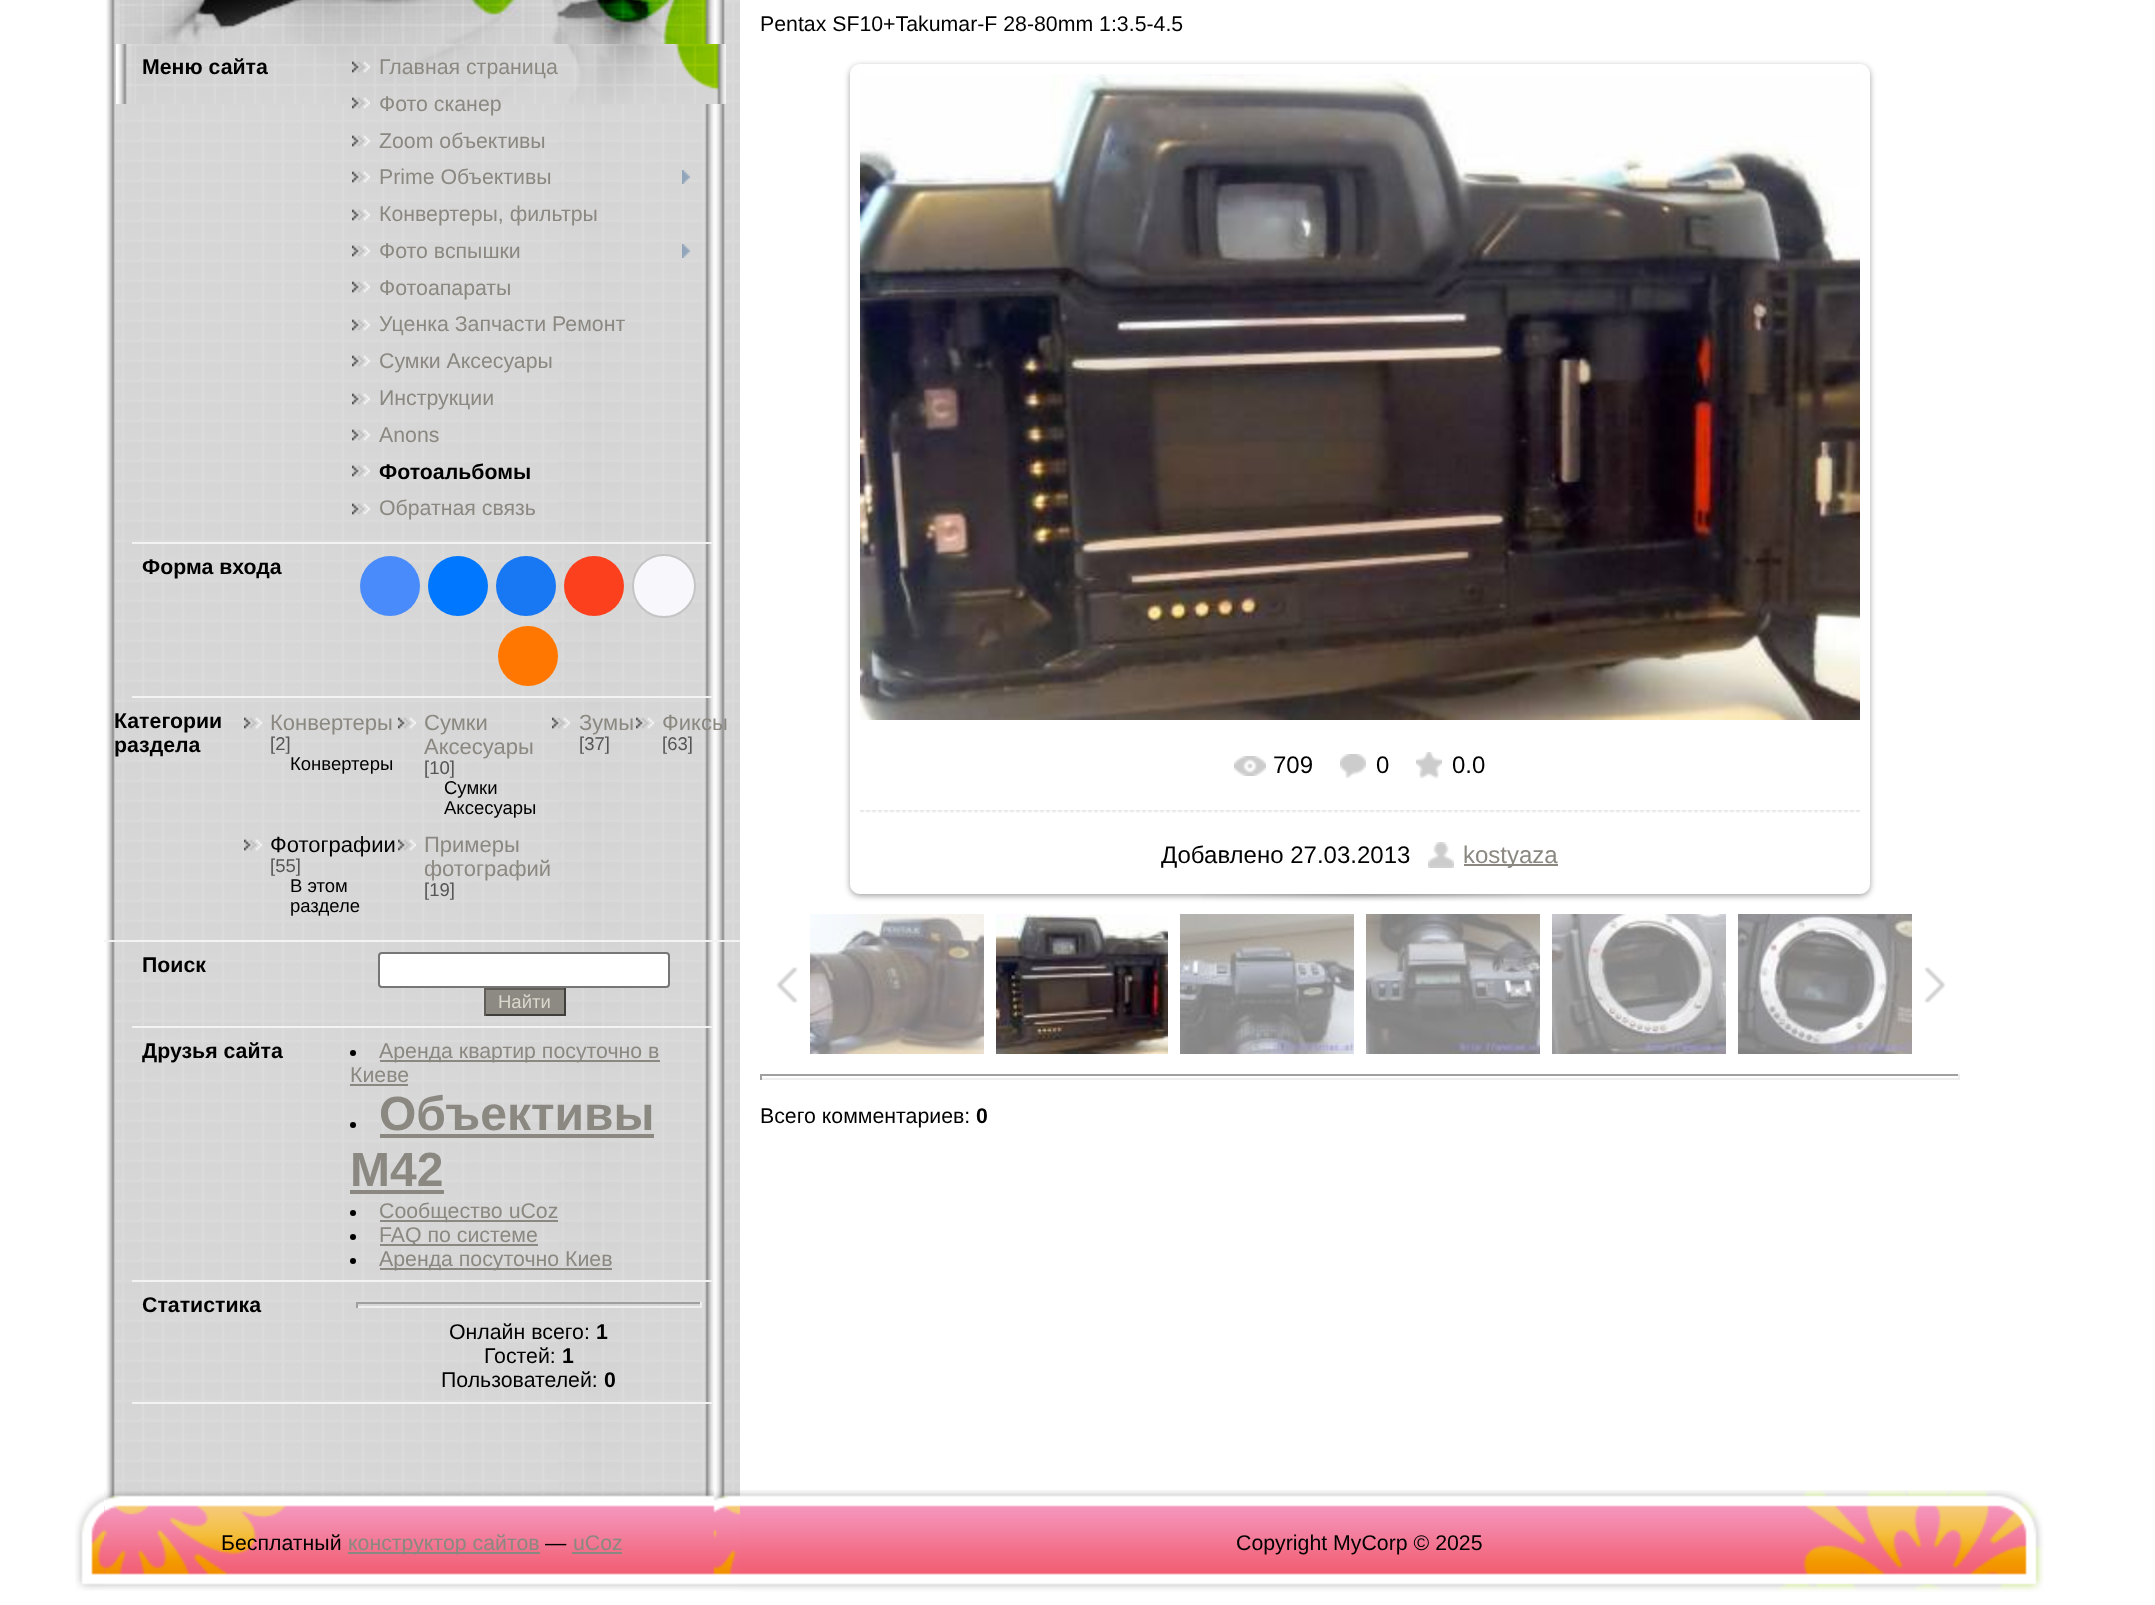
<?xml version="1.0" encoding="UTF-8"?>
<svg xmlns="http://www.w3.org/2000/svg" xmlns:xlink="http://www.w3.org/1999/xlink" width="2155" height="1605">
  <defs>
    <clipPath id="clip1"><path d="M 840 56 h 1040 v 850 h -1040 z m 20 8 h 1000 c 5.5 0 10 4.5 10 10 v 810 c 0 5.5 -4.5 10 -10 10 h -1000 c -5.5 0 -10 -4.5 -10 -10 v -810 c 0 -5.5 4.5 -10 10 -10 z" clip-rule="evenodd" /></clipPath>
  </defs>
  <rect width="100%" height="100%" fill="#ffffff" />
  <image x="106" y="0" width="634" height="1490" xlink:href="image1.png" />
  <image x="113" y="0" width="601" height="44" xlink:href="image2.png" />
  <image x="116" y="44" width="610" height="60" xlink:href="image3.png" />
  <rect x="132" y="542" width="580" height="2" fill="#f3f3f3" />
  <image x="352" y="61" width="18" height="12" xlink:href="image4.png" />
  <image x="352" y="97" width="18" height="12" xlink:href="image5.png" />
  <image x="352" y="135" width="18" height="12" xlink:href="image6.png" />
  <image x="352" y="171" width="18" height="12" xlink:href="image7.png" />
  <image x="682" y="170" width="8" height="14" xlink:href="image8.png" />
  <image x="352" y="209" width="18" height="12" xlink:href="image9.png" />
  <image x="352" y="245" width="18" height="12" xlink:href="image10.png" />
  <image x="682" y="244" width="8" height="14" xlink:href="image11.png" />
  <image x="352" y="281" width="18" height="12" xlink:href="image12.png" />
  <image x="352" y="319" width="18" height="12" xlink:href="image13.png" />
  <image x="352" y="355" width="18" height="12" xlink:href="image6.png" />
  <image x="352" y="393" width="18" height="12" xlink:href="image14.png" />
  <image x="352" y="429" width="18" height="12" xlink:href="image9.png" />
  <image x="352" y="465" width="18" height="12" xlink:href="image10.png" />
  <image x="352" y="503" width="18" height="12" xlink:href="image15.png" />
  <rect x="132" y="696" width="580" height="2" fill="#f3f3f3" />
  <circle cx="390" cy="586" r="30" fill="#498bfa" />
  <circle cx="458" cy="586" r="30" fill="#0077ff" />
  <circle cx="526" cy="586" r="30" fill="#1877f2" />
  <circle cx="594" cy="586" r="30" fill="#fc3f1d" />
  <circle cx="664" cy="586" r="31" fill="#f8f8fc" stroke="#c4c4c4" stroke-width="2" />
  <circle cx="528" cy="656" r="30" fill="#ff7700" />
  <rect x="104" y="940" width="636" height="2" fill="#f3f3f3" />
  <image x="244" y="717" width="18" height="12" xlink:href="image16.png" />
  <image x="398" y="717" width="18" height="12" xlink:href="image17.png" />
  <image x="552" y="717" width="18" height="12" xlink:href="image18.png" />
  <image x="636" y="717" width="18" height="12" xlink:href="image19.png" />
  <image x="244" y="839" width="18" height="12" xlink:href="image20.png" />
  <image x="398" y="839" width="18" height="12" xlink:href="image21.png" />
  <rect x="132" y="1026" width="580" height="2" fill="#f3f3f3" />
  <rect x="379" y="953" width="290" height="34" rx="3" fill="#ffffff" stroke="#767676" stroke-width="2" />
  <rect x="486" y="990" width="78" height="24" fill="#8d8a83" />
  <rect x="484" y="988" width="82" height="2" fill="#615e58" />
  <rect x="564" y="988" width="2" height="28" fill="#413f3b" />
  <rect x="484" y="1014" width="82" height="2" fill="#413f3b" />
  <rect x="484" y="988" width="2" height="28" fill="#615e58" />
  <rect x="132" y="1280" width="580" height="2" fill="#f3f3f3" />
  <circle cx="353" cy="1053" r="3" fill="#000000" />
  <rect x="380" y="1060" width="280" height="2" fill="#8b8881" />
  <rect x="350" y="1084" width="58" height="2" fill="#8b8881" />
  <circle cx="353" cy="1125" r="3" fill="#000000" />
  <rect x="380" y="1134" width="274" height="4" fill="#8b8881" />
  <rect x="350" y="1190" width="94" height="4" fill="#8b8881" />
  <circle cx="353" cy="1213" r="3" fill="#000000" />
  <rect x="380" y="1220" width="178" height="2" fill="#8b8881" />
  <circle cx="353" cy="1237" r="3" fill="#000000" />
  <rect x="380" y="1244" width="158" height="2" fill="#8b8881" />
  <circle cx="353" cy="1261" r="3" fill="#000000" />
  <rect x="380" y="1268" width="232" height="2" fill="#8b8881" />
  <rect x="132" y="1402" width="580" height="2" fill="#f3f3f3" />
  <rect x="356" y="1302" width="346" height="2" fill="#9f9f9f" />
  <rect x="700" y="1302" width="2" height="6" fill="#eeeeee" />
  <rect x="356" y="1306" width="346" height="2" fill="#eeeeee" />
  <rect x="356" y="1302" width="2" height="6" fill="#9f9f9f" />
  <g clip-path="url(#clip1)">
    <rect x="850" y="66" width="1020" height="830" rx="10" fill="#000000" fill-opacity="0.37" filter="blur(3px)" />
  </g>
  <image x="860" y="74" width="1000" height="646" xlink:href="image22.png" />
  <image x="1234" y="756" width="32" height="20" xlink:href="image23.png" />
  <image x="1340" y="754" width="26" height="24" xlink:href="image24.png" />
  <image x="1416" y="752" width="26" height="26" xlink:href="image25.png" />
  <image x="860" y="810" width="1000" height="3" xlink:href="image26.png" />
  <image x="1428" y="842" width="26" height="26" xlink:href="image27.png" />
  <rect x="1464" y="864" width="94" height="2" fill="#8b8881" />
  <image x="1201" y="894" width="320" height="7" xlink:href="image28.png" />
  <image x="776" y="967" width="22" height="36" xlink:href="image29.png" />
  <image x="810" y="914" width="174" height="140" xlink:href="image30.png" />
  <image x="996" y="914" width="172" height="140" xlink:href="image31.png" />
  <image x="1180" y="914" width="174" height="140" xlink:href="image32.png" />
  <image x="1366" y="914" width="174" height="140" xlink:href="image33.png" />
  <image x="1552" y="914" width="174" height="140" xlink:href="image34.png" />
  <image x="1738" y="914" width="174" height="140" xlink:href="image35.png" />
  <image x="1924" y="967" width="22" height="36" xlink:href="image36.png" />
  <rect x="760" y="1074" width="1200" height="2" fill="#9f9f9f" />
  <rect x="1958" y="1074" width="2" height="6" fill="#eeeeee" />
  <rect x="760" y="1078" width="1200" height="2" fill="#eeeeee" />
  <rect x="760" y="1074" width="2" height="6" fill="#9f9f9f" />
  <image x="75" y="1493" width="29" height="98" xlink:href="image37.png" />
  <image x="1980" y="1490" width="64" height="102" xlink:href="image38.png" />
  <image x="104" y="1490" width="636" height="101" xlink:href="image39.png" />
  <rect x="348" y="1552" width="192" height="2" fill="#8b8881" />
  <rect x="572" y="1552" width="50" height="2" fill="#8b8881" />
  <image x="740" y="1490" width="1240" height="102" xlink:href="image40.png" />
  <text x="142" y="74" style="font-family: Liberation Sans; font-size: 21.3px; font-weight: bold; fill: #000000">Меню сайта</text>
  <text x="379" y="74" style="font-family: Liberation Sans; font-size: 21.3px; fill: #8b8881">Главная страница</text>
  <text x="379" y="111" style="font-family: Liberation Sans; font-size: 21.3px; fill: #8b8881">Фото сканер</text>
  <text x="379" y="148" style="font-family: Liberation Sans; font-size: 21.3px; fill: #8b8881">Zoom объективы</text>
  <text x="379" y="184" style="font-family: Liberation Sans; font-size: 21.3px; fill: #8b8881">Prime Объективы</text>
  <text x="379" y="221" style="font-family: Liberation Sans; font-size: 21.3px; fill: #8b8881">Конвертеры, фильтры</text>
  <text x="379" y="258" style="font-family: Liberation Sans; font-size: 21.3px; fill: #8b8881">Фото вспышки</text>
  <text x="379" y="295" style="font-family: Liberation Sans; font-size: 21.3px; fill: #8b8881">Фотоапараты</text>
  <text x="379" y="331" style="font-family: Liberation Sans; font-size: 21.3px; fill: #8b8881">Уценка Запчасти Ремонт</text>
  <text x="379" y="368" style="font-family: Liberation Sans; font-size: 21.3px; fill: #8b8881">Сумки Аксесуары</text>
  <text x="379" y="405" style="font-family: Liberation Sans; font-size: 21.3px; fill: #8b8881">Инструкции</text>
  <text x="379" y="442" style="font-family: Liberation Sans; font-size: 21.3px; fill: #8b8881">Anons</text>
  <text x="379" y="479" style="font-family: Liberation Sans; font-size: 21.3px; font-weight: bold; fill: #000000">Фотоальбомы</text>
  <text x="379" y="515" style="font-family: Liberation Sans; font-size: 21.3px; fill: #8b8881">Обратная связь</text>
  <text x="142" y="574" style="font-family: Liberation Sans; font-size: 21.3px; font-weight: bold; fill: #000000">Форма входа</text>
  <text x="114" y="728" style="font-family: Liberation Sans; font-size: 21.3px; font-weight: bold; fill: #000000">Категории</text>
  <text x="114" y="752" style="font-family: Liberation Sans; font-size: 21.3px; font-weight: bold; fill: #000000">раздела</text>
  <text x="270" y="730" style="font-family: Liberation Sans; font-size: 22px; fill: #8b8881">Конвертеры</text>
  <text x="270" y="750" style="font-family: Liberation Sans; font-size: 18.5px; fill: #555555">[2]</text>
  <text x="290" y="770" style="font-family: Liberation Sans; font-size: 18.5px; fill: #000000">Конвертеры</text>
  <text x="424" y="730" style="font-family: Liberation Sans; font-size: 22px; fill: #8b8881">Сумки</text>
  <text x="424" y="754" style="font-family: Liberation Sans; font-size: 22px; fill: #8b8881">Аксесуары</text>
  <text x="424" y="774" style="font-family: Liberation Sans; font-size: 18.5px; fill: #555555">[10]</text>
  <text x="444" y="794" style="font-family: Liberation Sans; font-size: 18.5px; fill: #000000">Сумки</text>
  <text x="444" y="814" style="font-family: Liberation Sans; font-size: 18.5px; fill: #000000">Аксесуары</text>
  <text x="579" y="730" style="font-family: Liberation Sans; font-size: 22px; fill: #8b8881">Зумы</text>
  <text x="579" y="750" style="font-family: Liberation Sans; font-size: 18.5px; fill: #555555">[37]</text>
  <text x="662" y="730" style="font-family: Liberation Sans; font-size: 22px; fill: #8b8881">Фиксы</text>
  <text x="662" y="750" style="font-family: Liberation Sans; font-size: 18.5px; fill: #555555">[63]</text>
  <text x="270" y="852" style="font-family: Liberation Sans; font-size: 22px; fill: #000000">Фотографии</text>
  <text x="270" y="872" style="font-family: Liberation Sans; font-size: 18.5px; fill: #555555">[55]</text>
  <text x="290" y="892" style="font-family: Liberation Sans; font-size: 18.5px; fill: #000000">В этом</text>
  <text x="290" y="912" style="font-family: Liberation Sans; font-size: 18.5px; fill: #000000">разделе</text>
  <text x="424" y="852" style="font-family: Liberation Sans; font-size: 22px; fill: #8b8881">Примеры</text>
  <text x="424" y="876" style="font-family: Liberation Sans; font-size: 22px; fill: #8b8881">фотографий</text>
  <text x="424" y="896" style="font-family: Liberation Sans; font-size: 18.5px; fill: #555555">[19]</text>
  <text x="142" y="972" style="font-family: Liberation Sans; font-size: 21.3px; font-weight: bold; fill: #000000">Поиск</text>
  <text x="498" y="1008" style="font-family: Liberation Sans; font-size: 18.5px; fill: #dad7cc">Найти</text>
  <text x="142" y="1058" style="font-family: Liberation Sans; font-size: 21.3px; font-weight: bold; fill: #000000">Друзья сайта</text>
  <text x="379" y="1058" style="font-family: Liberation Sans; font-size: 21.3px; fill: #8b8881">Аренда квартир посуточно в</text>
  <text x="350" y="1082" style="font-family: Liberation Sans; font-size: 21.3px; fill: #8b8881">Киеве</text>
  <text x="379" y="1130" style="font-family: Liberation Sans; font-size: 48px; font-weight: bold; fill: #8b8881">Объективы</text>
  <text x="350" y="1186" style="font-family: Liberation Sans; font-size: 48px; font-weight: bold; fill: #8b8881">М42</text>
  <text x="379" y="1218" style="font-family: Liberation Sans; font-size: 21.3px; fill: #8b8881">Сообщество uCoz</text>
  <text x="379" y="1242" style="font-family: Liberation Sans; font-size: 21.3px; fill: #8b8881">FAQ по системе</text>
  <text x="379" y="1266" style="font-family: Liberation Sans; font-size: 21.3px; fill: #8b8881">Аренда посуточно Киев</text>
  <text x="142" y="1312" style="font-family: Liberation Sans; font-size: 21.3px; font-weight: bold; fill: #000000">Статистика</text>
  <text x="449" y="1339" style="font-family: Liberation Sans; font-size: 21.3px; fill: #000000">Онлайн всего:</text>
  <text x="596" y="1339" style="font-family: Liberation Sans; font-size: 21.3px; font-weight: bold; fill: #000000">1</text>
  <text x="484" y="1363" style="font-family: Liberation Sans; font-size: 21.3px; fill: #000000">Гостей:</text>
  <text x="562" y="1363" style="font-family: Liberation Sans; font-size: 21.3px; font-weight: bold; fill: #000000">1</text>
  <text x="441" y="1387" style="font-family: Liberation Sans; font-size: 21.3px; fill: #000000">Пользователей:</text>
  <text x="604" y="1387" style="font-family: Liberation Sans; font-size: 21.3px; font-weight: bold; fill: #000000">0</text>
  <text x="760" y="31" style="font-family: Liberation Sans; font-size: 21.3px; fill: #000000">Pentax SF10+Takumar-F 28-80mm 1:3.5-4.5</text>
  <text x="1273" y="773" style="font-family: Liberation Sans; font-size: 24px; fill: #000000">709</text>
  <text x="1376" y="773" style="font-family: Liberation Sans; font-size: 24px; fill: #000000">0</text>
  <text x="1452" y="773" style="font-family: Liberation Sans; font-size: 24px; fill: #000000">0.0</text>
  <text x="1161" y="863" style="font-family: Liberation Sans; font-size: 24px; fill: #000000">Добавлено 27.03.2013</text>
  <text x="1463" y="863" style="font-family: Liberation Sans; font-size: 24px; fill: #8b8881">kostyaza</text>
  <text x="760" y="1123" style="font-family: Liberation Sans; font-size: 21.3px; fill: #000000">Всего комментариев:</text>
  <text x="976" y="1123" style="font-family: Liberation Sans; font-size: 21.3px; font-weight: bold; fill: #000000">0</text>
  <text x="221" y="1550" style="font-family: Liberation Sans; font-size: 21.3px; fill: #000000">Бесплатный</text>
  <text x="348" y="1550" style="font-family: Liberation Sans; font-size: 21.3px; fill: #8b8881">конструктор сайтов</text>
  <text x="545" y="1550" style="font-family: Liberation Sans; font-size: 21.3px; fill: #000000">—</text>
  <text x="573" y="1550" style="font-family: Liberation Sans; font-size: 21.3px; fill: #8b8881">uCoz</text>
  <text x="1236" y="1550" style="font-family: Liberation Sans; font-size: 21.3px; fill: #000000">Copyright MyCorp © 2025</text>
</svg>
